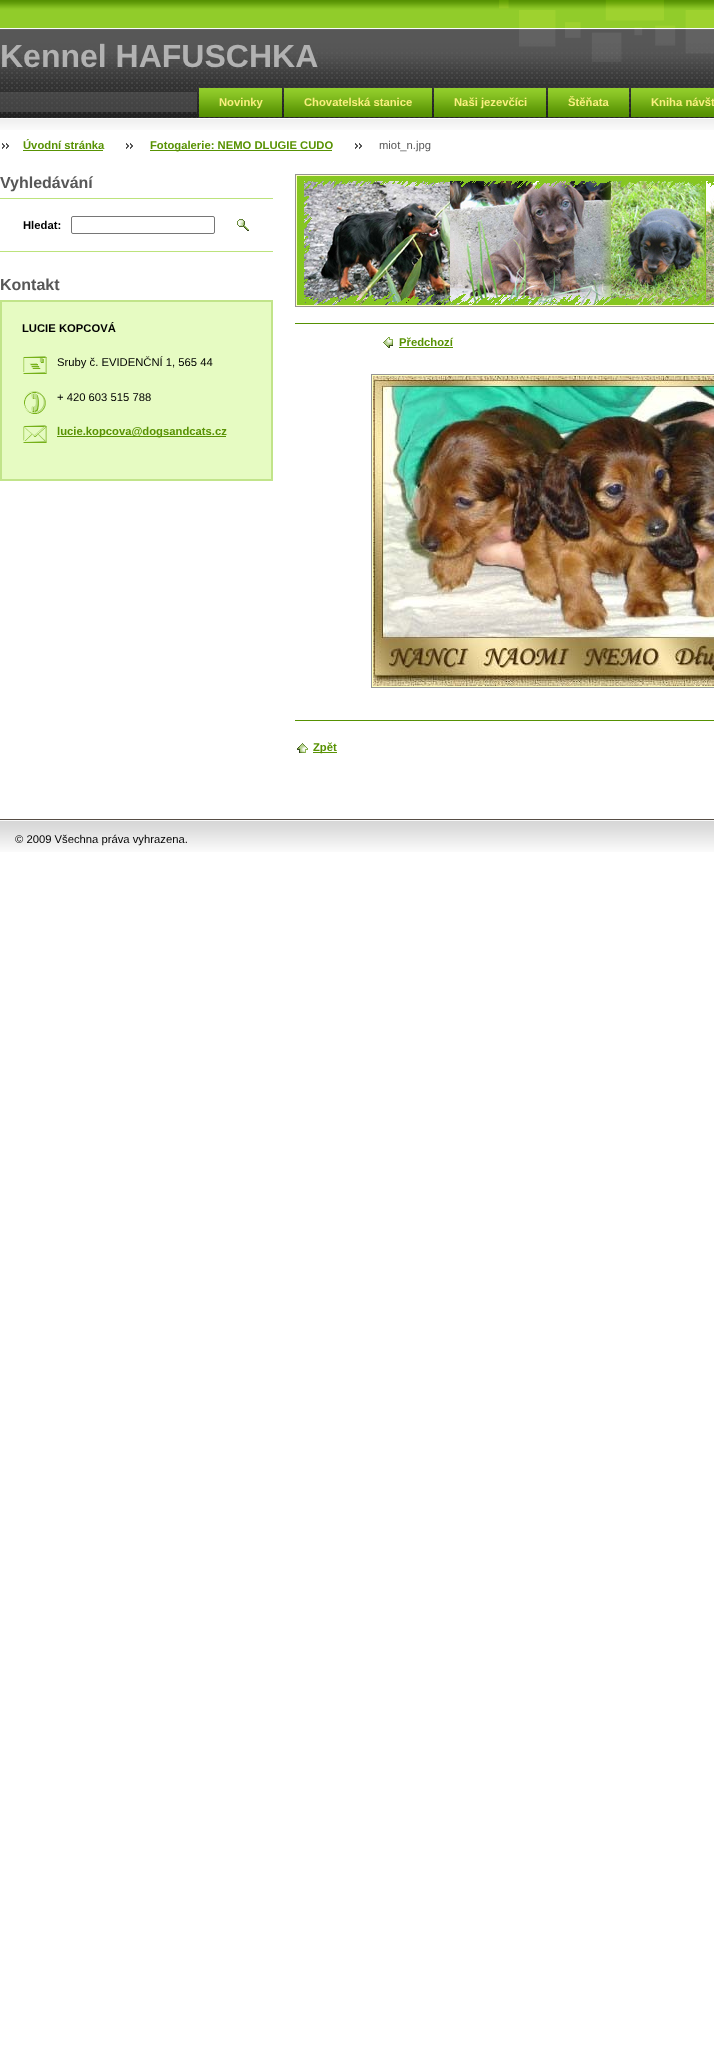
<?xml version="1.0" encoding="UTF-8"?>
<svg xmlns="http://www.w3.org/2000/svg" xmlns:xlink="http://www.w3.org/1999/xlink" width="714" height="2070">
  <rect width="100%" height="100%" fill="#ffffff" />
  <image x="0" y="0" width="714" height="118" xlink:href="image1.png" />
  <image x="0" y="118" width="714" height="12" xlink:href="image7.png" />
  <image x="197" y="82" width="517" height="37" xlink:href="image2.png" />
  <image x="199" y="88" width="83" height="29" xlink:href="image3.png" />
  <image x="284" y="88" width="148" height="29" xlink:href="image4.png" />
  <image x="434" y="88" width="112" height="29" xlink:href="image5.png" />
  <image x="548" y="88" width="81" height="29" xlink:href="image6.png" />
  <image x="631" y="88" width="83" height="29" xlink:href="image3.png" />
  <image x="2" y="143" width="7" height="6" xlink:href="image8.png" />
  <rect x="23" y="150" width="80" height="1" fill="#589203" />
  <image x="126" y="143" width="7" height="6" xlink:href="image8.png" />
  <rect x="150" y="150" width="182" height="1" fill="#589203" />
  <image x="355" y="143" width="7" height="6" xlink:href="image8.png" />
  <rect y="198" width="273" height="1" fill="#bce37c" />
  <rect y="251" width="273" height="1" fill="#bce37c" />
  <rect x="71.5" y="216.5" width="143" height="17" rx="1.5" fill="none" stroke="#767676" />
  <image x="237" y="219" width="12" height="12" xlink:href="image9.png" />
  <rect x="1" y="301" width="271" height="179" fill="#e6fbc2" stroke="#c1e48a" stroke-width="2" />
  <image x="23" y="356" width="24" height="18" xlink:href="image10.png" />
  <image x="24" y="391" width="22" height="23" xlink:href="image11.png" />
  <image x="23" y="425" width="24" height="18" xlink:href="image12.png" />
  <rect x="57" y="436" width="169" height="1" fill="#589203" />
  <rect x="295.5" y="174.5" width="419" height="132" fill="none" stroke="#939393" />
  <rect x="296.5" y="175.5" width="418" height="130" fill="none" stroke="#ffffbe" />
  <image x="297" y="176" width="417" height="129" xlink:href="image13.png" />
  <rect x="295" y="323" width="419" height="1" fill="#569102" />
  <rect x="295" y="720" width="419" height="1" fill="#569102" />
  <image x="383" y="337" width="10" height="11" xlink:href="image14.png" />
  <rect x="399" y="347" width="54" height="1" fill="#589203" />
  <rect x="371.5" y="374.5" width="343" height="313" fill="none" stroke="#949496" />
  <rect x="372.5" y="375.5" width="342" height="311" fill="none" stroke="#ffffbe" />
  <image x="373" y="376" width="341" height="310" xlink:href="image15.png" />
  <image x="297" y="743" width="11" height="10" xlink:href="image16.png" />
  <rect x="313" y="752" width="24" height="1" fill="#589203" />
  <image x="0" y="819" width="714" height="33" xlink:href="image17.png" />
  <text x="0" y="67" style="font-family: Liberation Sans; font-size: 32px; font-weight: bold; fill: #b2b2b2">Kennel HAFUSCHKA</text>
  <text x="219" y="106" style="font-family: Liberation Sans; font-size: 11.25px; font-weight: bold; fill: #f9ef7f">Novinky</text>
  <text x="304" y="106" style="font-family: Liberation Sans; font-size: 11.25px; font-weight: bold; fill: #f9ef7f">Chovatelská stanice</text>
  <text x="454" y="106" style="font-family: Liberation Sans; font-size: 11.25px; font-weight: bold; fill: #f9ef7f">Naši jezevčíci</text>
  <text x="568" y="106" style="font-family: Liberation Sans; font-size: 11.25px; font-weight: bold; fill: #f9ef7f">Štěňata</text>
  <text x="651" y="106" style="font-family: Liberation Sans; font-size: 11.25px; font-weight: bold; fill: #f9ef7f">Kniha návšt</text>
  <text x="23" y="149" style="font-family: Liberation Sans; font-size: 11.25px; font-weight: bold; fill: #589203">Úvodní stránka</text>
  <text x="150" y="149" style="font-family: Liberation Sans; font-size: 11.25px; font-weight: bold; fill: #589203">Fotogalerie: NEMO DLUGIE CUDO</text>
  <text x="379" y="149" style="font-family: Liberation Sans; font-size: 11.25px; fill: #575757">miot_n.jpg</text>
  <text x="0" y="188" style="font-family: Liberation Sans; font-size: 16px; font-weight: bold; fill: #575757">Vyhledávání</text>
  <text x="23" y="229" style="font-family: Liberation Sans; font-size: 11.25px; font-weight: bold; fill: #000000">Hledat:</text>
  <text x="0" y="290" style="font-family: Liberation Sans; font-size: 16px; font-weight: bold; fill: #575757">Kontakt</text>
  <text x="22" y="332" style="font-family: Liberation Sans; font-size: 11.25px; font-weight: bold; fill: #000000">LUCIE KOPCOVÁ</text>
  <text x="57" y="366" style="font-family: Liberation Sans; font-size: 11.25px; fill: #000000">Sruby č. EVIDENČNÍ 1, 565 44</text>
  <text x="57" y="401" style="font-family: Liberation Sans; font-size: 11.25px; fill: #000000">+ 420 603 515 788</text>
  <text x="57" y="435" style="font-family: Liberation Sans; font-size: 11.25px; font-weight: bold; fill: #589203">lucie.kopcova@dogsandcats.cz</text>
  <text x="399" y="346" style="font-family: Liberation Sans; font-size: 11.25px; font-weight: bold; fill: #589203">Předchozí</text>
  <text x="313" y="751" style="font-family: Liberation Sans; font-size: 11.25px; font-weight: bold; fill: #589203">Zpět</text>
  <text x="15" y="843" style="font-family: Liberation Sans; font-size: 11.25px; fill: #000000">© 2009 Všechna práva vyhrazena.</text>
</svg>
